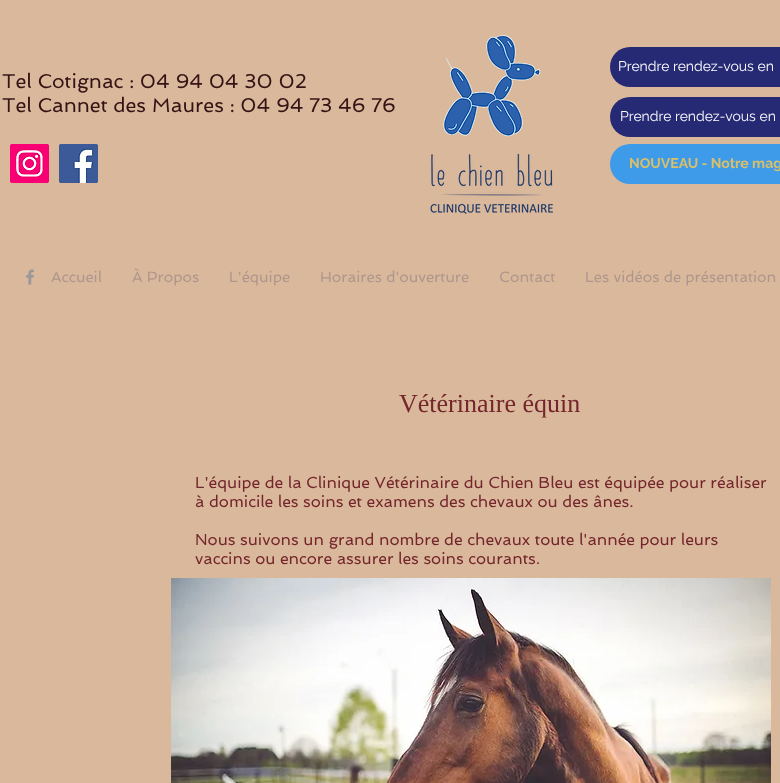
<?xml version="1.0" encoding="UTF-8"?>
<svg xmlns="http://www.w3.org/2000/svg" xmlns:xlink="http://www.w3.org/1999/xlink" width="780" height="783">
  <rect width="100%" height="100%" fill="#dab89c" />
  <image x="430" y="35" width="123" height="179" xlink:href="image1.png" />
  <rect x="610" y="47" width="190" height="40" rx="20" fill="#262a74" />
  <rect x="610" y="97" width="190" height="40" rx="20" fill="#262a74" />
  <image x="10" y="144" width="39" height="39" xlink:href="image2.png" />
  <image x="59" y="144" width="39" height="39" xlink:href="image3.png" />
  <rect x="610" y="144" width="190" height="40" rx="20" fill="#3d9be9" />
  <image x="26" y="269" width="8" height="16" xlink:href="image4.png" />
  <image x="171" y="578" width="600" height="205" xlink:href="image5.png" />
  <text x="618" y="71" style="font-family: Raleway; font-size: 14px; fill: #ffffff">Prendre rendez-vous en</text>
  <text x="2" y="88" style="font-family: Spinnaker; font-size: 20px; fill: #361215">Tel Cotignac : 04 94 04 30 02</text>
  <text x="2" y="112" style="font-family: Spinnaker; font-size: 20px; fill: #361215">Tel Cannet des Maures : 04 94 73 46 76</text>
  <text x="620" y="121" style="font-family: Raleway; font-size: 14px; fill: #ffffff">Prendre rendez-vous en</text>
  <text x="629" y="168" style="font-family: Raleway; font-size: 14px; font-weight: bold; fill: #dabf68">NOUVEAU - Notre mag</text>
  <text x="51" y="282" style="font-family: Spinnaker; font-size: 15px; fill: #af968c">Accueil</text>
  <text x="132" y="282" style="font-family: Spinnaker; font-size: 15px; fill: #af968c">À Propos</text>
  <text x="229" y="282" style="font-family: Spinnaker; font-size: 15px; fill: #af968c">L'équipe</text>
  <text x="320" y="282" style="font-family: Spinnaker; font-size: 15px; fill: #af968c">Horaires d'ouverture</text>
  <text x="499" y="282" style="font-family: Spinnaker; font-size: 15px; fill: #af968c">Contact</text>
  <text x="585" y="282" style="font-family: Spinnaker; font-size: 15px; fill: #af968c">Les vidéos de présentation</text>
  <text x="399" y="412" style="font-family: Liberation Serif; font-size: 26px; fill: #74262c">Vétérinaire équin</text>
  <text x="195" y="488" style="font-family: Spinnaker; font-size: 16px; fill: #74262c">L'équipe de la Clinique Vétérinaire du Chien Bleu est équipée pour réaliser</text>
  <text x="195" y="507" style="font-family: Spinnaker; font-size: 16px; fill: #74262c">à domicile les soins et examens des chevaux ou des ânes.</text>
  <text x="195" y="545" style="font-family: Spinnaker; font-size: 16px; fill: #74262c">Nous suivons un grand nombre de chevaux toute l'année pour leurs</text>
  <text x="195" y="564" style="font-family: Spinnaker; font-size: 16px; fill: #74262c">vaccins ou encore assurer les soins courants.</text>
</svg>
